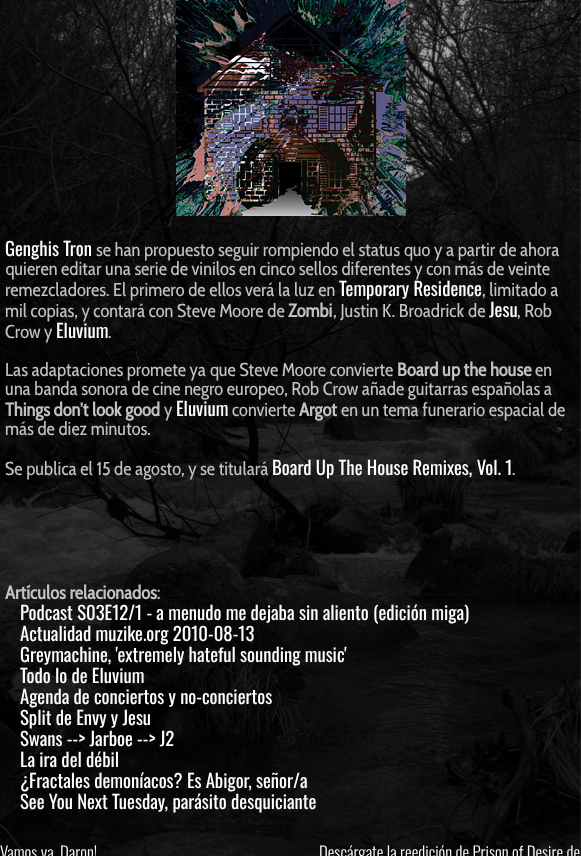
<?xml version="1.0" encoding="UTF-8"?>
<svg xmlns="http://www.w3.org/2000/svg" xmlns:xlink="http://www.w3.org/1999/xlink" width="581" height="856">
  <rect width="100%" height="100%" fill="#ffffff" />
  <image x="0" y="0" width="581" height="856" xlink:href="image1.png" />
  <image x="176" y="0" width="230" height="216" xlink:href="image2.png" />
  <text x="5" y="256" style="font-family: Oswald; font-size: 18.7px; fill: #ffffff">Genghis Tron</text>
  <text x="96" y="256" style="font-family: Cabin Condensed; font-size: 18.7px; fill: #c2c2c2">se han propuesto seguir rompiendo el status quo y a partir de ahora</text>
  <text x="5" y="275" style="font-family: Cabin Condensed; font-size: 18.7px; fill: #c2c2c2">quieren editar una serie de vinilos en cinco sellos diferentes y con más de veinte</text>
  <text x="5" y="296" style="font-family: Cabin Condensed; font-size: 18.7px; fill: #c2c2c2">remezcladores. El primero de ellos verá la luz en</text>
  <text x="339" y="296" style="font-family: Oswald; font-size: 18.7px; fill: #ffffff">Temporary Residence</text>
  <text x="482" y="296" style="font-family: Cabin Condensed; font-size: 18.7px; fill: #c2c2c2">, limitado a</text>
  <text x="5" y="317" style="font-family: Cabin Condensed; font-size: 18.7px; fill: #c2c2c2">mil copias, y contará con Steve Moore de</text>
  <text x="288" y="317" style="font-family: Cabin Condensed; font-size: 18.7px; font-weight: bold; fill: #c2c2c2">Zombi</text>
  <text x="333" y="317" style="font-family: Cabin Condensed; font-size: 18.7px; fill: #c2c2c2">, Justin K. Broadrick de</text>
  <text x="489" y="317" style="font-family: Oswald; font-size: 18.7px; fill: #ffffff">Jesu</text>
  <text x="517" y="317" style="font-family: Cabin Condensed; font-size: 18.7px; fill: #c2c2c2">, Rob</text>
  <text x="5" y="338" style="font-family: Cabin Condensed; font-size: 18.7px; fill: #c2c2c2">Crow y</text>
  <text x="56" y="338" style="font-family: Oswald; font-size: 18.7px; fill: #ffffff">Eluvium</text>
  <text x="108" y="338" style="font-family: Cabin Condensed; font-size: 18.7px; fill: #c2c2c2">.</text>
  <text x="5" y="376" style="font-family: Cabin Condensed; font-size: 18.7px; fill: #c2c2c2">Las adaptaciones promete ya que Steve Moore convierte</text>
  <text x="397" y="376" style="font-family: Cabin Condensed; font-size: 18.7px; font-weight: bold; fill: #c2c2c2">Board up the house</text>
  <text x="535" y="376" style="font-family: Cabin Condensed; font-size: 18.7px; fill: #c2c2c2">en</text>
  <text x="5" y="395" style="font-family: Cabin Condensed; font-size: 18.7px; fill: #c2c2c2">una banda sonora de cine negro europeo, Rob Crow añade guitarras españolas a</text>
  <text x="5" y="416" style="font-family: Cabin Condensed; font-size: 18.7px; font-weight: bold; fill: #c2c2c2">Things don't look good</text>
  <text x="164" y="416" style="font-family: Cabin Condensed; font-size: 18.7px; fill: #c2c2c2">y</text>
  <text x="176" y="416" style="font-family: Oswald; font-size: 18.7px; fill: #ffffff">Eluvium</text>
  <text x="232" y="416" style="font-family: Cabin Condensed; font-size: 18.7px; fill: #c2c2c2">convierte</text>
  <text x="299" y="416" style="font-family: Cabin Condensed; font-size: 18.7px; font-weight: bold; fill: #c2c2c2">Argot</text>
  <text x="341" y="416" style="font-family: Cabin Condensed; font-size: 18.7px; fill: #c2c2c2">en un tema funerario espacial de</text>
  <text x="5" y="435" style="font-family: Cabin Condensed; font-size: 18.7px; fill: #c2c2c2">más de diez minutos.</text>
  <text x="5" y="475" style="font-family: Cabin Condensed; font-size: 18.7px; fill: #c2c2c2">Se publica el 15 de agosto, y se titulará</text>
  <text x="272" y="475" style="font-family: Oswald; font-size: 18.7px; fill: #ffffff">Board Up The House Remixes, Vol. 1</text>
  <text x="512" y="475" style="font-family: Cabin Condensed; font-size: 18.7px; fill: #c2c2c2">.</text>
  <text x="5" y="599" style="font-family: Cabin Condensed; font-size: 18.7px; font-weight: bold; fill: #c2c2c2">Artículos relacionados</text>
  <text x="157" y="599" style="font-family: Cabin Condensed; font-size: 18.7px; fill: #c2c2c2">:</text>
  <text x="20" y="620" style="font-family: Oswald; font-size: 18.7px; fill: #ffffff">Podcast S03E12/1 - a menudo me dejaba sin aliento (edición miga)</text>
  <text x="20" y="641" style="font-family: Oswald; font-size: 18.7px; fill: #ffffff">Actualidad muzike.org 2010-08-13</text>
  <text x="20" y="662" style="font-family: Oswald; font-size: 18.7px; fill: #ffffff">Greymachine, 'extremely hateful sounding music'</text>
  <text x="20" y="683" style="font-family: Oswald; font-size: 18.7px; fill: #ffffff">Todo lo de Eluvium</text>
  <text x="20" y="704" style="font-family: Oswald; font-size: 18.7px; fill: #ffffff">Agenda de conciertos y no-conciertos</text>
  <text x="20" y="725" style="font-family: Oswald; font-size: 18.7px; fill: #ffffff">Split de Envy y Jesu</text>
  <text x="20" y="746" style="font-family: Oswald; font-size: 18.7px; fill: #ffffff">Swans --&gt; Jarboe --&gt; J2</text>
  <text x="20" y="767" style="font-family: Oswald; font-size: 18.7px; fill: #ffffff">La ira del débil</text>
  <text x="20" y="788" style="font-family: Oswald; font-size: 18.7px; fill: #ffffff">¿Fractales demoníacos? Es Abigor, señor/a</text>
  <text x="20" y="809" style="font-family: Oswald; font-size: 18.7px; fill: #ffffff">See You Next Tuesday, parásito desquiciante</text>
  <text x="0" y="859" style="font-family: Oswald; font-size: 16.8px; font-weight: 300; fill: #ffffff">Vamos ya, Daron!</text>
  <text x="319" y="859" style="font-family: Oswald; font-size: 16.8px; font-weight: 300; fill: #ffffff">Descárgate la reedición de Prison of Desire de</text>
</svg>
